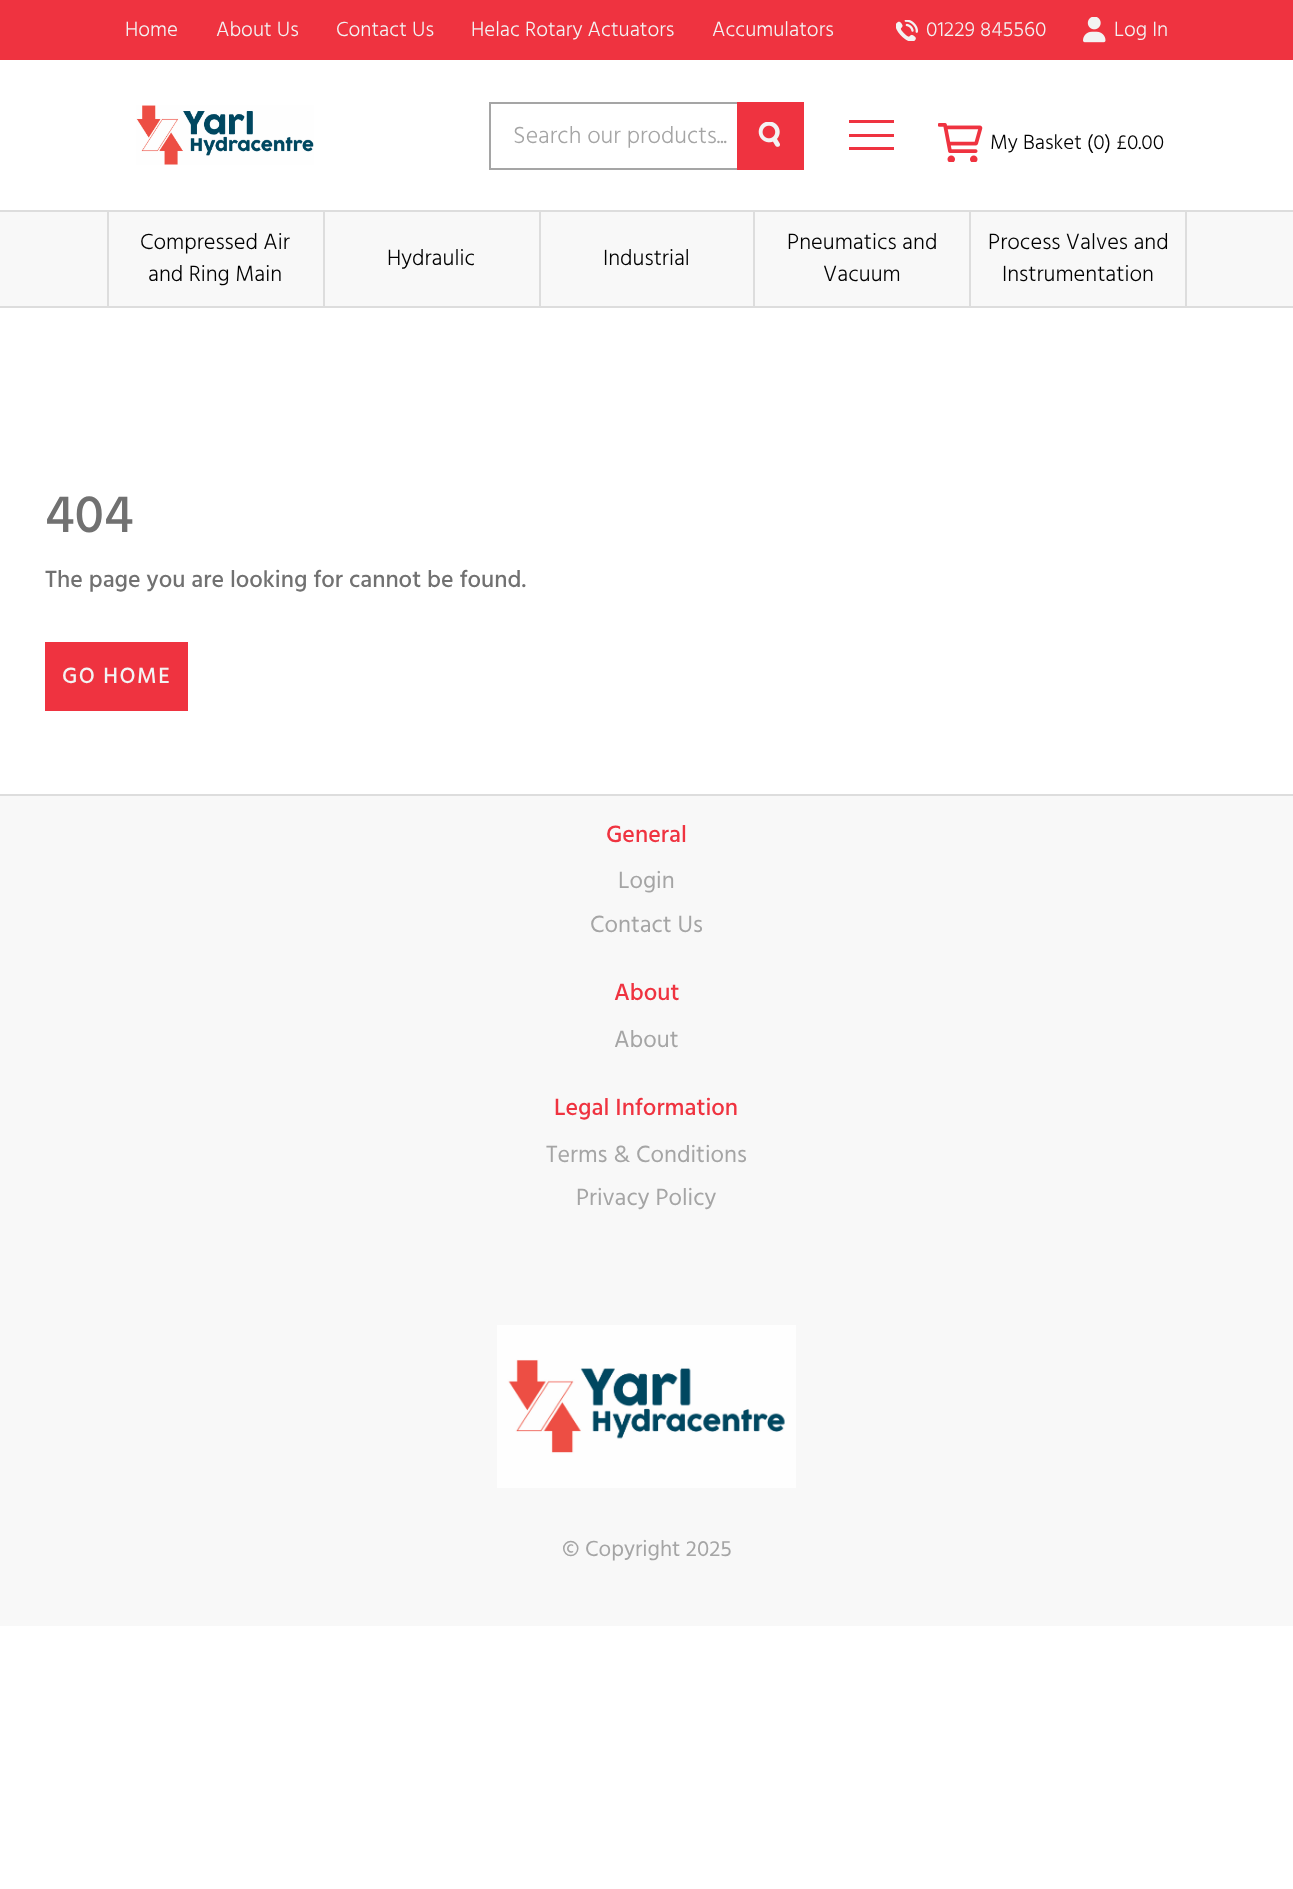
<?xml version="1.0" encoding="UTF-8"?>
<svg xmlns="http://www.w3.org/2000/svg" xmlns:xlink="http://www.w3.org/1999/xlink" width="1293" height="1889">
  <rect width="100%" height="100%" fill="#ffffff" />
  <rect width="1293" height="60" fill="#ef3340" />
  <image x="896" y="20" width="22" height="21" xlink:href="image1.png" />
  <image x="1083" y="17" width="23" height="26" xlink:href="image2.png" />
  <image x="136" y="105" width="178" height="60" xlink:href="image3.png" />
  <rect x="490" y="103" width="313" height="66" fill="none" stroke="#a5a5a5" stroke-width="2" />
  <rect x="737" y="102" width="67" height="68" fill="#ef3340" />
  <image x="758" y="122" width="22" height="25" xlink:href="image4.png" />
  <rect x="849" y="120" width="45" height="3" fill="#ef3340" />
  <rect x="849" y="134" width="45" height="3" fill="#ef3340" />
  <rect x="849" y="147" width="45" height="3" fill="#ef3340" />
  <image x="938" y="123" width="45" height="39" xlink:href="image5.png" />
  <rect y="212" width="1293" height="94" fill="#f8f8f8" />
  <rect y="210" width="1293" height="2" fill="#dddddd" />
  <rect y="306" width="1293" height="2" fill="#dddddd" />
  <rect x="1185" y="212" width="2" height="94" fill="#dddddd" />
  <rect x="107" y="212" width="2" height="94" fill="#dddddd" />
  <rect x="323" y="212" width="2" height="94" fill="#dddddd" />
  <rect x="539" y="212" width="2" height="94" fill="#dddddd" />
  <rect x="753" y="212" width="2" height="94" fill="#dddddd" />
  <rect x="969" y="212" width="2" height="94" fill="#dddddd" />
  <rect x="45" y="642" width="143" height="69" fill="#ef3340" />
  <rect y="796" width="1293" height="830" fill="#f8f8f8" />
  <rect y="794" width="1293" height="2" fill="#dddddd" />
  <image x="497" y="1325" width="299" height="163" xlink:href="image6.png" />
  <text x="125" y="36" style="font-family: Hind; font-size: 21px; font-weight: 300; fill: #f3f3f3">Home</text>
  <text x="216" y="36" style="font-family: Hind; font-size: 21px; font-weight: 300; fill: #f3f3f3">About Us</text>
  <text x="336" y="36" style="font-family: Hind; font-size: 21px; font-weight: 300; fill: #f3f3f3">Contact Us</text>
  <text x="471" y="36" style="font-family: Hind; font-size: 21px; font-weight: 300; fill: #f3f3f3">Helac Rotary Actuators</text>
  <text x="712" y="36" style="font-family: Hind; font-size: 21px; font-weight: 300; fill: #f3f3f3">Accumulators</text>
  <text x="926" y="36" style="font-family: Hind; font-size: 21px; font-weight: 300; fill: #f3f3f3">01229 845560</text>
  <text x="1114" y="36" style="font-family: Hind; font-size: 21px; font-weight: 300; fill: #f3f3f3">Log In</text>
  <text x="513" y="143" style="font-family: Hind; font-size: 24px; font-weight: 300; fill: #a5a5a5">Search our products...</text>
  <text x="990" y="149" style="font-family: Hind; font-size: 21px; font-weight: 300; fill: #000000">My Basket (0) £0.00</text>
  <text x="140" y="249" style="font-family: Hind; font-size: 22.5px; font-weight: 300; fill: #000000">Compressed Air</text>
  <text x="148" y="281" style="font-family: Hind; font-size: 22.5px; font-weight: 300; fill: #000000">and Ring Main</text>
  <text x="387" y="265" style="font-family: Hind; font-size: 22.5px; font-weight: 300; fill: #000000">Hydraulic</text>
  <text x="603" y="265" style="font-family: Hind; font-size: 22.5px; font-weight: 300; fill: #000000">Industrial</text>
  <text x="787" y="249" style="font-family: Hind; font-size: 22.5px; font-weight: 300; fill: #000000">Pneumatics and</text>
  <text x="823" y="281" style="font-family: Hind; font-size: 22.5px; font-weight: 300; fill: #000000">Vacuum</text>
  <text x="988" y="249" style="font-family: Hind; font-size: 22.5px; font-weight: 300; fill: #000000">Process Valves and</text>
  <text x="1002" y="281" style="font-family: Hind; font-size: 22.5px; font-weight: 300; fill: #000000">Instrumentation</text>
  <text x="45" y="532" style="font-family: Hind; font-size: 54px; font-weight: 500; fill: #717171">404</text>
  <text x="45" y="587" style="font-family: Hind; font-size: 24px; font-weight: 500; fill: #717171">The page you are looking for cannot be found.</text>
  <text x="62" y="683" style="font-family: Hind; font-size: 22.5px; font-weight: 500; letter-spacing: 1.5px; fill: #f3f3f3">GO HOME</text>
  <text x="606" y="842" style="font-family: Hind; font-size: 24px; font-weight: 500; fill: #ef3340">General</text>
  <text x="618" y="888" style="font-family: Hind; font-size: 24px; fill: #a5a5a5">Login</text>
  <text x="590" y="932" style="font-family: Hind; font-size: 24px; fill: #a5a5a5">Contact Us</text>
  <text x="614" y="1000" style="font-family: Hind; font-size: 24px; font-weight: 500; fill: #ef3340">About</text>
  <text x="614" y="1047" style="font-family: Hind; font-size: 24px; fill: #a5a5a5">About</text>
  <text x="554" y="1115" style="font-family: Hind; font-size: 24px; font-weight: 500; fill: #ef3340">Legal Information</text>
  <text x="546" y="1162" style="font-family: Hind; font-size: 24px; fill: #a5a5a5">Terms &amp; Conditions</text>
  <text x="576" y="1205" style="font-family: Hind; font-size: 24px; fill: #a5a5a5">Privacy Policy</text>
  <text x="562" y="1556" style="font-family: Hind; font-size: 22.5px; fill: #a5a5a5">© Copyright 2025</text>
</svg>
